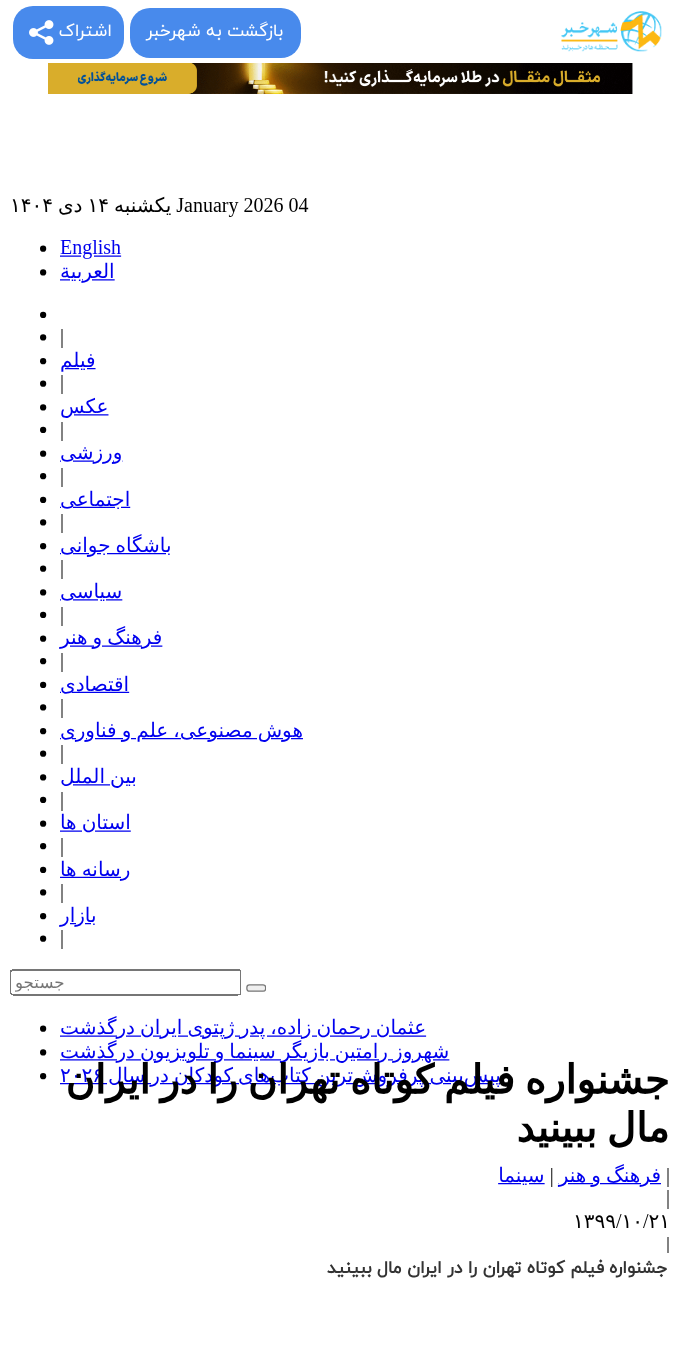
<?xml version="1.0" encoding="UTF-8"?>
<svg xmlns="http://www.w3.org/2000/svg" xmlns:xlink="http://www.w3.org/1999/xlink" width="680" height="1371">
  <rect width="100%" height="100%" fill="#ffffff" />
  <image x="561" y="11" width="101" height="41" xlink:href="image1.png" />
  <rect x="130" y="8" width="171" height="50" rx="20" fill="#488aec" />
  <rect x="13" y="6" width="111" height="53" rx="20" fill="#488aec" />
  <image x="29" y="20" width="25" height="25" xlink:href="image2.png" />
  <image x="48" y="63" width="585" height="31" xlink:href="image3.png" />
  <image x="10" y="196" width="659" height="1057" xlink:href="image4.png" />
  <text x="283" y="36" style="font-family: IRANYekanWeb; font-size: 17.5px; direction: rtl; fill: #ffffff">بازگشت به شهرخبر</text>
  <text x="112" y="36" style="font-family: IRANYekanWeb; font-size: 17.5px; direction: rtl; fill: #ffffff">اشتراک</text>
  <text x="667" y="1273" style="font-family: IRANYekanWeb; font-size: 17.5px; font-weight: bold; direction: rtl; fill: #333333">جشنواره</text>
  <text x="604" y="1273" style="font-family: IRANYekanWeb; font-size: 17.5px; font-weight: bold; direction: rtl; fill: #333333">فیلم کوتاه تهران را در ایران مال ببینید</text>
</svg>
